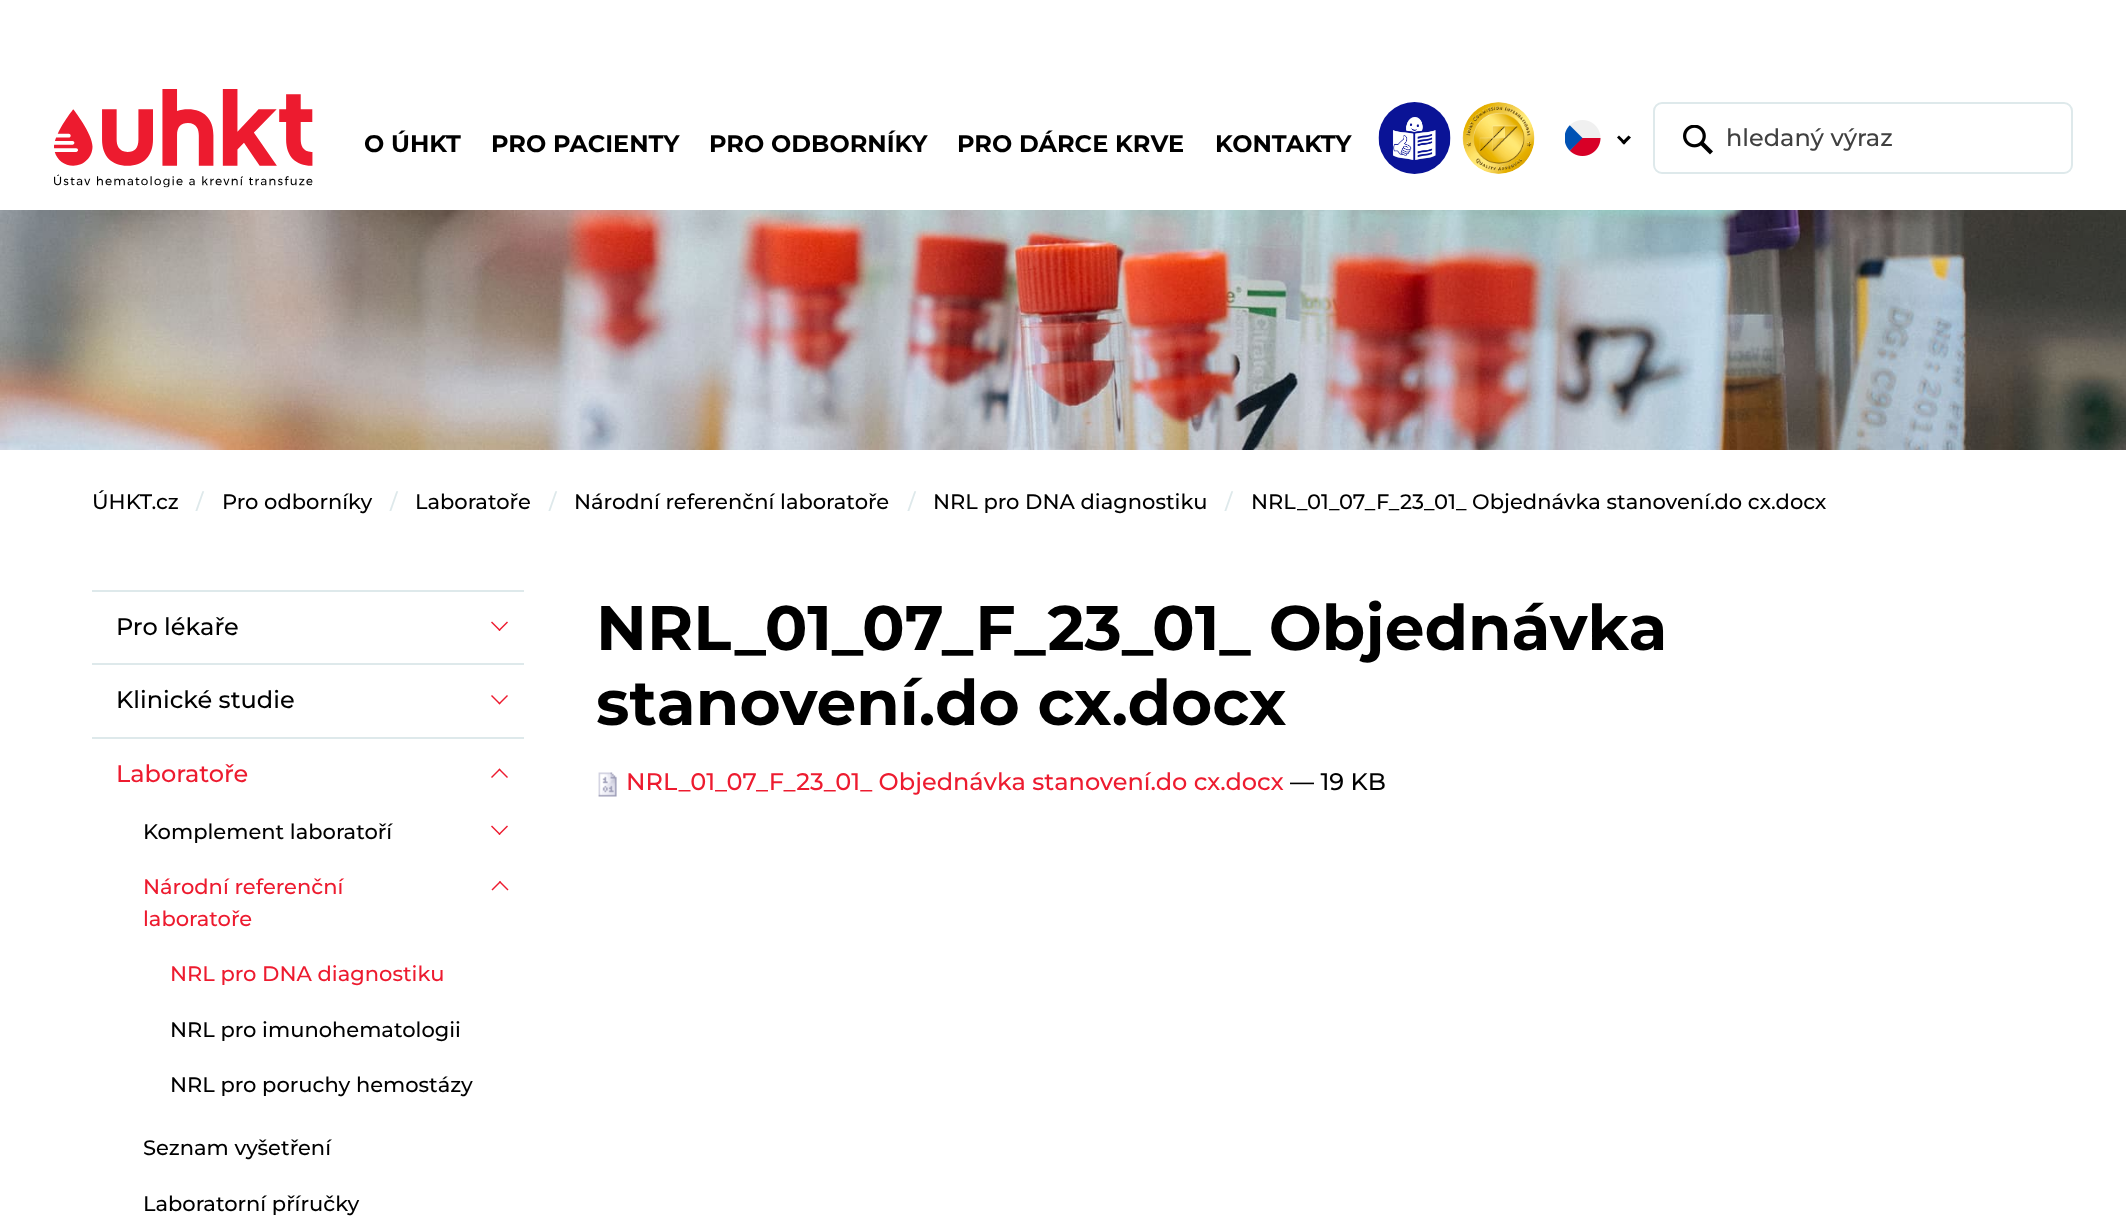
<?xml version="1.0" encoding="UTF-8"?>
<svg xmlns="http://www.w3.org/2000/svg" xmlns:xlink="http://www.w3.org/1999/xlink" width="2126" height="1216">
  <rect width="100%" height="100%" fill="#ffffff" />
  <image x="54" y="89" width="259" height="99" xlink:href="image1.png" />
  <image x="1378" y="102" width="73" height="72" xlink:href="image2.png" />
  <image x="1462" y="102" width="73" height="72" xlink:href="image3.png" />
  <image x="1565" y="120" width="36" height="36" xlink:href="image4.png" />
  <path d="M 1628.5 135.5 l 2.5 2 l -7 7 l -2.5 -2 z" fill="#000000" />
  <path d="M 1619 135.5 l 7 7 l -2 2 l -7 -7 z" fill="#000000" />
  <rect x="1654" y="103" width="418" height="70" rx="8" fill="none" stroke="#dee9eb" stroke-width="2" />
  <image x="1683" y="125" width="30" height="30" xlink:href="image5.png" />
  <image x="0" y="210" width="2126" height="240" xlink:href="image6.png" />
  <rect x="92" y="590" width="432" height="2" fill="#dee9eb" />
  <rect x="92" y="663" width="432" height="2" fill="#dee9eb" />
  <path d="M 499.5 631 l -8.5 -8.5 l 1 -1 l 8.5 8.5 z" fill="#ed1b2f" />
  <path d="M 499.5 631 l -1 -1 l 8.5 -8.5 l 1 1 z" fill="#ed1b2f" />
  <rect x="92" y="737" width="432" height="2" fill="#dee9eb" />
  <path d="M 499.5 704.5 l -8.5 -8.5 l 1 -1 l 8.5 8.5 z" fill="#ed1b2f" />
  <path d="M 499.5 704.5 l -1 -1 l 8.5 -8.5 l 1 1 z" fill="#ed1b2f" />
  <path d="M 499.5 768.5 l 8.5 8.5 l -1 1 l -8.5 -8.5 z" fill="#ed1b2f" />
  <path d="M 499.5 768.5 l 1 1 l -8.5 8.5 l -1 -1 z" fill="#ed1b2f" />
  <path d="M 499.5 835 l -8.5 -8.5 l 1 -1 l 8.5 8.5 z" fill="#ed1b2f" />
  <path d="M 499.5 835 l -1 -1 l 8.5 -8.5 l 1 1 z" fill="#ed1b2f" />
  <path d="M 500 881 l 8.5 8.5 l -1 1 l -8.5 -8.5 z" fill="#ed1b2f" />
  <path d="M 500 881 l 1 1 l -8.5 8.5 l -1 -1 z" fill="#ed1b2f" />
  <image x="598" y="772" width="19" height="25" xlink:href="image7.png" />
  <text x="364" y="152" style="font-family: 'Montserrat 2'; font-size: 24px; font-weight: 100; fill: #000000">O ÚHKT</text>
  <text x="491" y="152" style="font-family: 'Montserrat 2'; font-size: 24px; font-weight: 100; fill: #000000">PRO PACIENTY</text>
  <text x="709" y="152" style="font-family: 'Montserrat 2'; font-size: 24px; font-weight: 100; fill: #000000">PRO ODBORNÍKY</text>
  <text x="957" y="152" style="font-family: 'Montserrat 2'; font-size: 24px; font-weight: 100; fill: #000000">PRO DÁRCE KRVE</text>
  <text x="1215" y="152" style="font-family: 'Montserrat 2'; font-size: 24px; font-weight: 100; fill: #000000">KONTAKTY</text>
  <text x="1726" y="146" style="font-family: Montserrat; font-size: 24px; font-weight: 100; fill: #404040">hledaný výraz</text>
  <text x="92" y="509" style="font-family: Montserrat; font-size: 21px; font-weight: 100; fill: #000000">ÚHKT.cz</text>
  <text x="196" y="509" style="font-family: Montserrat; font-size: 21px; font-weight: 100; fill: #dee9eb">/</text>
  <text x="222" y="509" style="font-family: Montserrat; font-size: 21px; font-weight: 100; fill: #000000">Pro odborníky</text>
  <text x="390" y="509" style="font-family: Montserrat; font-size: 21px; font-weight: 100; fill: #dee9eb">/</text>
  <text x="415" y="509" style="font-family: Montserrat; font-size: 21px; font-weight: 100; fill: #000000">Laboratoře</text>
  <text x="549" y="509" style="font-family: Montserrat; font-size: 21px; font-weight: 100; fill: #dee9eb">/</text>
  <text x="574" y="509" style="font-family: Montserrat; font-size: 21px; font-weight: 100; fill: #000000">Národní referenční laboratoře</text>
  <text x="908" y="509" style="font-family: Montserrat; font-size: 21px; font-weight: 100; fill: #dee9eb">/</text>
  <text x="933" y="509" style="font-family: Montserrat; font-size: 21px; font-weight: 100; fill: #000000">NRL pro DNA diagnostiku</text>
  <text x="1225" y="509" style="font-family: Montserrat; font-size: 21px; font-weight: 100; fill: #dee9eb">/</text>
  <text x="1251" y="509" style="font-family: Montserrat; font-size: 21px; font-weight: 100; fill: #000000">NRL_01_07_F_23_01_ Objednávka stanovení.do cx.docx</text>
  <text x="116" y="635" style="font-family: Montserrat; font-size: 24px; font-weight: 100; fill: #000000">Pro lékaře</text>
  <text x="116" y="708" style="font-family: Montserrat; font-size: 24px; font-weight: 100; fill: #000000">Klinické studie</text>
  <text x="116" y="782" style="font-family: Montserrat; font-size: 24px; font-weight: 100; fill: #ed1b2f">Laboratoře</text>
  <text x="143" y="839" style="font-family: Montserrat; font-size: 21px; font-weight: 100; fill: #000000">Komplement laboratoří</text>
  <text x="143" y="894" style="font-family: Montserrat; font-size: 21px; font-weight: 100; fill: #ed1b2f">Národní referenční</text>
  <text x="143" y="926" style="font-family: Montserrat; font-size: 21px; font-weight: 100; fill: #ed1b2f">laboratoře</text>
  <text x="170" y="981" style="font-family: Montserrat; font-size: 21px; font-weight: 100; fill: #ed1b2f">NRL pro DNA diagnostiku</text>
  <text x="170" y="1037" style="font-family: Montserrat; font-size: 21px; font-weight: 100; fill: #000000">NRL pro imunohematologii</text>
  <text x="170" y="1092" style="font-family: Montserrat; font-size: 21px; font-weight: 100; fill: #000000">NRL pro poruchy hemostázy</text>
  <text x="143" y="1155" style="font-family: Montserrat; font-size: 21px; font-weight: 100; fill: #000000">Seznam vyšetření</text>
  <text x="143" y="1211" style="font-family: Montserrat; font-size: 21px; font-weight: 100; fill: #000000">Laboratorní příručky</text>
  <text x="596" y="650" style="font-family: 'Montserrat 2'; font-size: 63px; font-weight: 100; fill: #000000">NRL_01_07_F_23_01_ Objednávka</text>
  <text x="596" y="725" style="font-family: 'Montserrat 2'; font-size: 63px; font-weight: 100; fill: #000000">stanovení.do cx.docx</text>
  <text x="626" y="790" style="font-family: Montserrat; font-size: 24px; font-weight: 100; fill: #ed1b2f">NRL_01_07_F_23_01_ Objednávka stanovení.do cx.docx</text>
  <text x="1290" y="790" style="font-family: Montserrat; font-size: 24px; font-weight: 100; fill: #000000">— 19 KB</text>
</svg>
